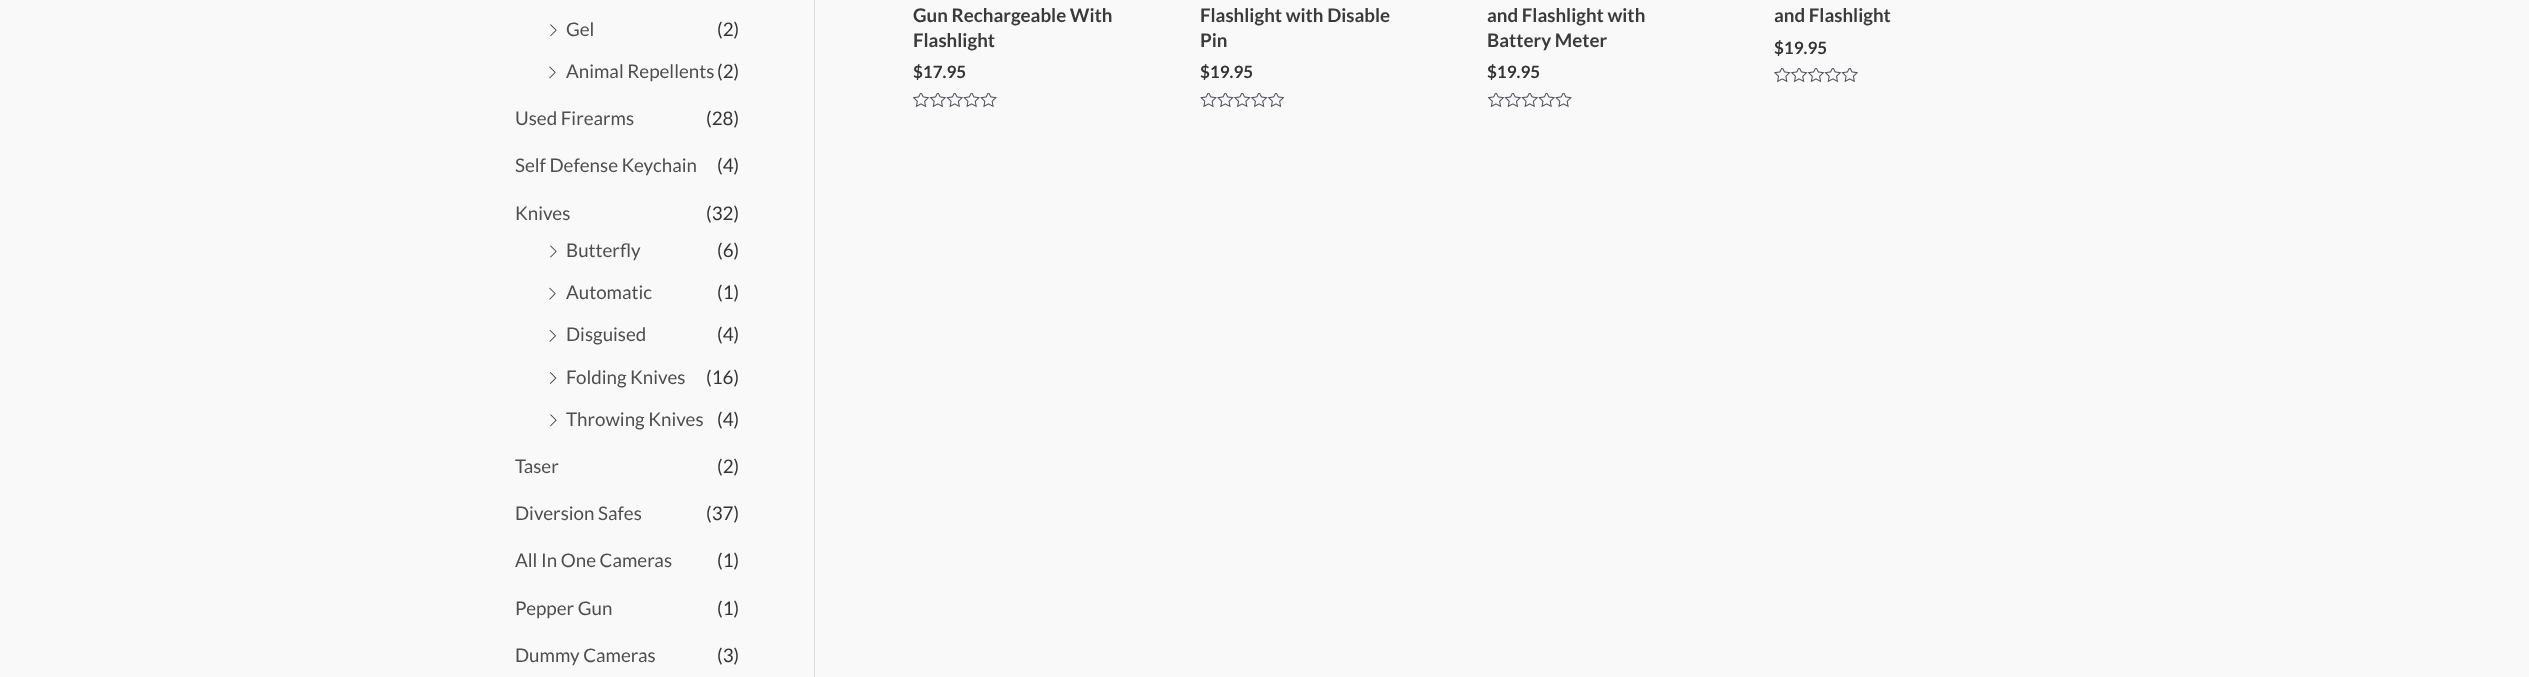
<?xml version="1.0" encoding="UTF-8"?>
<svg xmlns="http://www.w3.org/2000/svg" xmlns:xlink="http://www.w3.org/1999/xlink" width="2529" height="677">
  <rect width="100%" height="100%" fill="#f9f9f9" />
  <rect x="814" width="1" height="677" fill="#dddddd" />
  <image x="550" y="24" width="7" height="13" xlink:href="image1.png" />
  <image x="549" y="66" width="7" height="13" xlink:href="image2.png" />
  <image x="550" y="245" width="7" height="13" xlink:href="image3.png" />
  <image x="549" y="287" width="7" height="13" xlink:href="image4.png" />
  <image x="549" y="330" width="7" height="12" xlink:href="image5.png" />
  <image x="549" y="372" width="8" height="12" xlink:href="image6.png" />
  <image x="550" y="414" width="7" height="13" xlink:href="image1.png" />
  <image x="913" y="93" width="84" height="15" xlink:href="image7.png" />
  <image x="1200" y="93" width="85" height="15" xlink:href="image8.png" />
  <image x="1488" y="93" width="84" height="15" xlink:href="image7.png" />
  <image x="1774" y="68" width="84" height="15" xlink:href="image9.png" />
  <text x="566" y="36" style="font-family: Lato; font-size: 18.75px; fill: #4e4e4e">Gel</text>
  <text x="717" y="36" style="font-family: Lato; font-size: 18.75px; fill: #333333">(2)</text>
  <text x="566" y="78" style="font-family: Lato; font-size: 18.75px; fill: #4e4e4e">Animal Repellents</text>
  <text x="717" y="78" style="font-family: Lato; font-size: 18.75px; fill: #333333">(2)</text>
  <text x="515" y="125" style="font-family: Lato; font-size: 18.75px; fill: #4e4e4e">Used Firearms</text>
  <text x="706" y="125" style="font-family: Lato; font-size: 18.75px; fill: #333333">(28)</text>
  <text x="515" y="172" style="font-family: Lato; font-size: 18.75px; fill: #4e4e4e">Self Defense Keychain</text>
  <text x="717" y="172" style="font-family: Lato; font-size: 18.75px; fill: #333333">(4)</text>
  <text x="515" y="220" style="font-family: Lato; font-size: 18.75px; fill: #4e4e4e">Knives</text>
  <text x="706" y="220" style="font-family: Lato; font-size: 18.75px; fill: #333333">(32)</text>
  <text x="566" y="257" style="font-family: Lato; font-size: 18.75px; fill: #4e4e4e">Butterfly</text>
  <text x="717" y="257" style="font-family: Lato; font-size: 18.75px; fill: #333333">(6)</text>
  <text x="566" y="299" style="font-family: Lato; font-size: 18.75px; fill: #4e4e4e">Automatic</text>
  <text x="717" y="299" style="font-family: Lato; font-size: 18.75px; fill: #333333">(1)</text>
  <text x="566" y="341" style="font-family: Lato; font-size: 18.75px; fill: #4e4e4e">Disguised</text>
  <text x="717" y="341" style="font-family: Lato; font-size: 18.75px; fill: #333333">(4)</text>
  <text x="566" y="384" style="font-family: Lato; font-size: 18.75px; fill: #4e4e4e">Folding Knives</text>
  <text x="706" y="384" style="font-family: Lato; font-size: 18.75px; fill: #333333">(16)</text>
  <text x="566" y="426" style="font-family: Lato; font-size: 18.75px; fill: #4e4e4e">Throwing Knives</text>
  <text x="717" y="426" style="font-family: Lato; font-size: 18.75px; fill: #333333">(4)</text>
  <text x="515" y="473" style="font-family: Lato; font-size: 18.75px; fill: #4e4e4e">Taser</text>
  <text x="717" y="473" style="font-family: Lato; font-size: 18.75px; fill: #333333">(2)</text>
  <text x="515" y="520" style="font-family: Lato; font-size: 18.75px; fill: #4e4e4e">Diversion Safes</text>
  <text x="706" y="520" style="font-family: Lato; font-size: 18.75px; fill: #333333">(37)</text>
  <text x="515" y="567" style="font-family: Lato; font-size: 18.75px; fill: #4e4e4e">All In One Cameras</text>
  <text x="717" y="567" style="font-family: Lato; font-size: 18.75px; fill: #333333">(1)</text>
  <text x="515" y="615" style="font-family: Lato; font-size: 18.75px; fill: #4e4e4e">Pepper Gun</text>
  <text x="717" y="615" style="font-family: Lato; font-size: 18.75px; fill: #333333">(1)</text>
  <text x="515" y="662" style="font-family: Lato; font-size: 18.75px; fill: #4e4e4e">Dummy Cameras</text>
  <text x="717" y="662" style="font-family: Lato; font-size: 18.75px; fill: #333333">(3)</text>
  <text x="913" y="22" style="font-family: Lato; font-size: 18.75px; font-weight: bold; fill: #3a3a3a">Gun Rechargeable With</text>
  <text x="913" y="47" style="font-family: Lato; font-size: 18.75px; font-weight: bold; fill: #3a3a3a">Flashlight</text>
  <text x="913" y="78" style="font-family: Lato; font-size: 17px; font-weight: bold; fill: #333333">$17.95</text>
  <text x="1200" y="22" style="font-family: Lato; font-size: 18.75px; font-weight: bold; fill: #3a3a3a">Flashlight with Disable</text>
  <text x="1200" y="47" style="font-family: Lato; font-size: 18.75px; font-weight: bold; fill: #3a3a3a">Pin</text>
  <text x="1200" y="78" style="font-family: Lato; font-size: 17px; font-weight: bold; fill: #333333">$19.95</text>
  <text x="1487" y="22" style="font-family: Lato; font-size: 18.75px; font-weight: bold; fill: #3a3a3a">and Flashlight with</text>
  <text x="1487" y="47" style="font-family: Lato; font-size: 18.75px; font-weight: bold; fill: #3a3a3a">Battery Meter</text>
  <text x="1487" y="78" style="font-family: Lato; font-size: 17px; font-weight: bold; fill: #333333">$19.95</text>
  <text x="1774" y="22" style="font-family: Lato; font-size: 18.75px; font-weight: bold; fill: #3a3a3a">and Flashlight</text>
  <text x="1774" y="54" style="font-family: Lato; font-size: 17px; font-weight: bold; fill: #333333">$19.95</text>
</svg>
